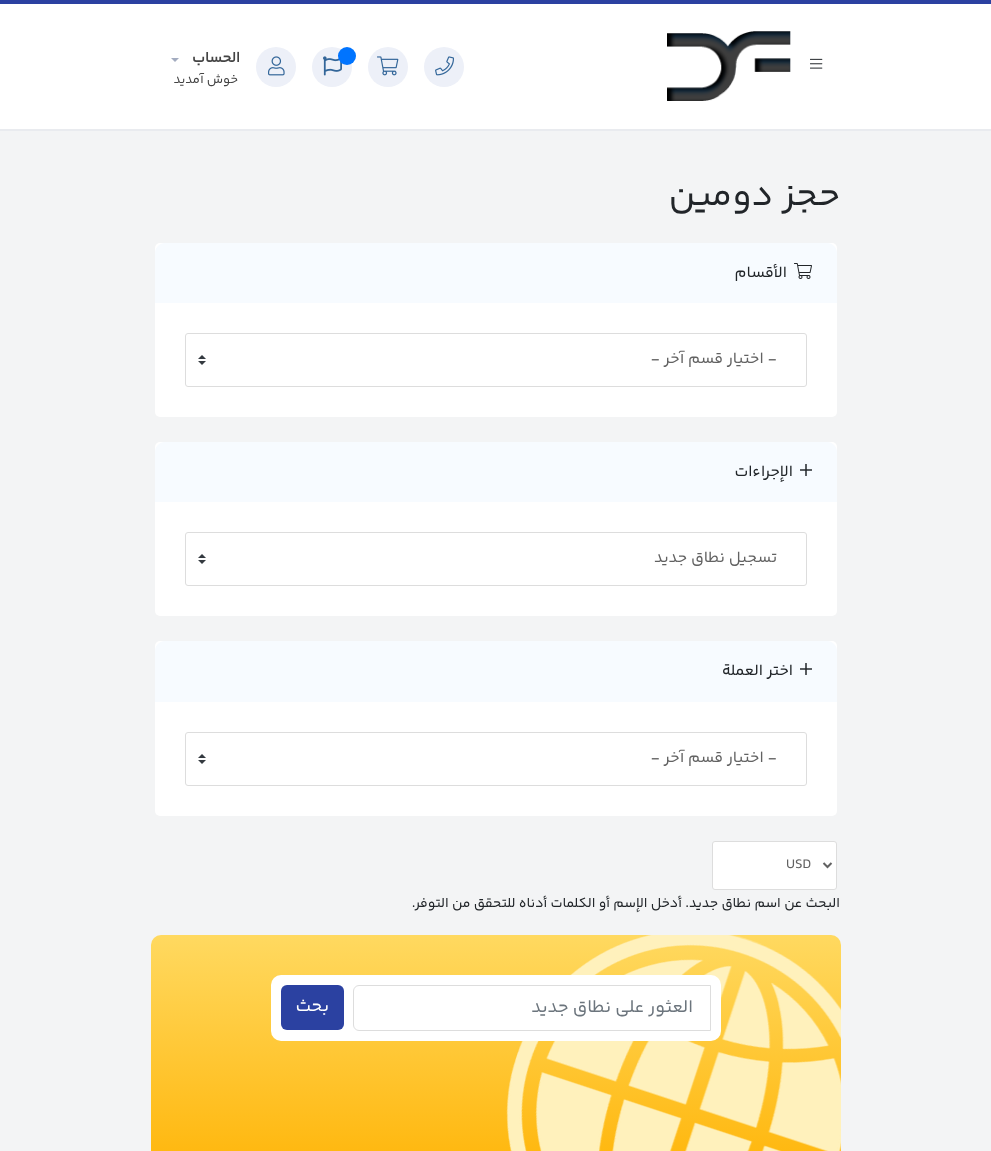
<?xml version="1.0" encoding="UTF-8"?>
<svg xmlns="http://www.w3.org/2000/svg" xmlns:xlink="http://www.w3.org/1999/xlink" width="991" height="1151">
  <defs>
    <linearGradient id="g1" gradientUnits="userSpaceOnUse" x1="496" y1="935" x2="496" y2="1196"><stop offset="0" stop-color="#ffd960" /><stop offset="1" stop-color="#ffb201" /></linearGradient>
  </defs>
  <rect width="100%" height="100%" fill="#f3f4f5" />
  <rect y="4" width="991" height="125" fill="#ffffff" />
  <rect width="991" height="4" fill="#2b41a1" />
  <rect y="129" width="991" height="2" fill="#e9ebef" />
  <image x="810" y="58" width="13" height="11" xlink:href="image1.png" />
  <image x="667" y="31" width="124" height="70" xlink:href="image2.png" />
  <circle cx="444" cy="67" r="20" fill="#edf0f8" />
  <image x="435" y="56" width="19" height="20" xlink:href="image3.png" />
  <circle cx="388" cy="67" r="20" fill="#edf0f8" />
  <image x="377" y="56" width="22" height="20" xlink:href="image4.png" />
  <circle cx="332" cy="67" r="20" fill="#edf0f8" />
  <image x="323" y="56" width="19" height="20" xlink:href="image5.png" />
  <circle cx="347" cy="56" r="9" fill="#0074ff" />
  <circle cx="276" cy="67" r="20" fill="#edf0f8" />
  <image x="268" y="56" width="17" height="20" xlink:href="image6.png" />
  <path d="M 171 58 h 8 l -4 4 z" fill="#a3acc0" />
  <rect x="155" y="243" width="682" height="174" rx="5" fill="#ffffff" />
  <path d="M 165 243 h 662 c 5.5 0 10 4.5 10 10 v 50 h -682 v -50 c 0 -5.5 4.5 -10 10 -10 z" fill="#f7fbff" />
  <image x="794" y="263" width="18" height="16" xlink:href="image7.png" />
  <image x="198" y="355" width="8" height="10" xlink:href="image8.png" />
  <rect x="185.5" y="333.5" width="621" height="53" rx="2.5" fill="none" stroke="#dddddd" />
  <rect x="155" y="442" width="682" height="174" rx="5" fill="#ffffff" />
  <path d="M 165 442 h 662 c 5.5 0 10 4.5 10 10 v 50 h -682 v -50 c 0 -5.5 4.5 -10 10 -10 z" fill="#f7fbff" />
  <image x="800" y="464" width="12" height="12" xlink:href="image9.png" />
  <image x="198" y="554" width="8" height="10" xlink:href="image8.png" />
  <rect x="185.5" y="532.5" width="621" height="53" rx="2.5" fill="none" stroke="#dddddd" />
  <rect x="155" y="641" width="682" height="175" rx="5" fill="#ffffff" />
  <path d="M 165 641 h 662 c 5.5 0 10 4.5 10 10 v 51 h -682 v -51 c 0 -5.5 4.5 -10 10 -10 z" fill="#f7fbff" />
  <image x="800" y="663" width="12" height="12" xlink:href="image9.png" />
  <image x="198" y="754" width="8" height="10" xlink:href="image8.png" />
  <rect x="185.5" y="732.5" width="621" height="53" rx="2.5" fill="none" stroke="#dddddd" />
  <rect x="712.5" y="841.5" width="124" height="48" rx="2.5" fill="#ffffff" stroke="#dddddd" />
  <path d="M 823.5 863 l 4 4 l 4 -4" fill="none" stroke="#626262" stroke-width="2" />
  <rect x="151" y="935" width="690" height="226" rx="10" fill="url(#g1)" />
  <image x="506" y="935" width="335" height="216" xlink:href="image10.png" />
  <rect x="271" y="975" width="450" height="66" rx="10" fill="#ffffff" />
  <path d="M 359 985.5 h 351.5 v 45 h -351.5 c -3 0 -5.5 -2.5 -5.5 -5.5 v -34 c 0 -3 2.5 -5.5 5.5 -5.5 z" fill="none" stroke="#dddddd" />
  <rect x="281" y="985" width="63" height="45" rx="6" fill="#2b41a1" />
  <text x="240" y="62" style="font-family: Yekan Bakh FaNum; font-size: 15px; font-weight: bold; direction: rtl; fill: #444444">الحساب</text>
  <text x="238" y="83" style="font-family: Yekan Bakh FaNum; font-size: 13px; direction: rtl; fill: #444444">خوش آمدید</text>
  <text x="840" y="205" style="font-family: Yekan Bakh FaNum; font-size: 36px; direction: rtl; fill: #212529">حجز دومين</text>
  <text x="787" y="277" style="font-family: Yekan Bakh FaNum; font-size: 16px; direction: rtl; fill: #212529">الأقسام</text>
  <text x="777" y="363" style="font-family: Yekan Bakh FaNum; font-size: 16px; direction: rtl; fill: #626262">- اختيار قسم آخر -</text>
  <text x="793" y="476" style="font-family: Yekan Bakh FaNum; font-size: 16px; direction: rtl; fill: #212529">الإجراءات</text>
  <text x="777" y="562" style="font-family: Yekan Bakh FaNum; font-size: 16px; direction: rtl; fill: #626262">تسجيل نطاق جديد</text>
  <text x="793" y="675" style="font-family: Yekan Bakh FaNum; font-size: 16px; direction: rtl; fill: #212529">اختر العملة</text>
  <text x="777" y="762" style="font-family: Yekan Bakh FaNum; font-size: 16px; direction: rtl; fill: #626262">- اختيار قسم آخر -</text>
  <text x="786" y="868" style="font-family: Yekan Bakh FaNum; font-size: 14px; fill: #626262">USD</text>
  <text x="840" y="907" style="font-family: Yekan Bakh FaNum; font-size: 14px; direction: rtl; fill: #212529">البحث عن اسم نطاق جديد. أدخل الإسم أو الكلمات أدناه للتحقق من التوفر.</text>
  <text x="693" y="1012" style="font-family: Yekan Bakh FaNum; font-size: 18px; direction: rtl; fill: #6c757d">العثور على نطاق جديد</text>
  <text x="329" y="1011" style="font-family: Yekan Bakh FaNum; font-size: 18px; direction: rtl; fill: #ffffff">بحث</text>
</svg>
